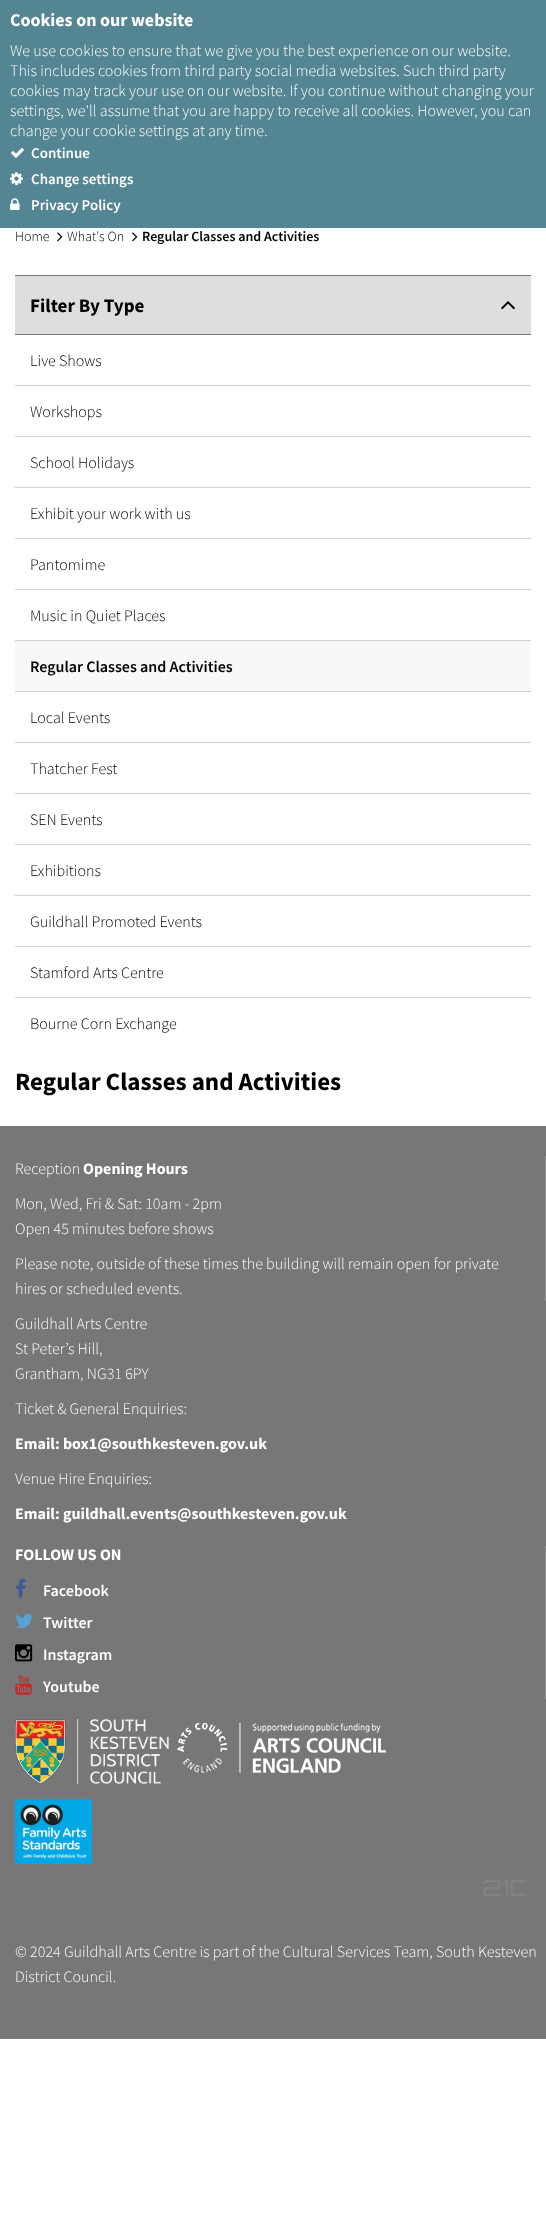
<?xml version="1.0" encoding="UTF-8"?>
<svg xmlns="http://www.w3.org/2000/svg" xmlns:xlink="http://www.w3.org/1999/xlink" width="546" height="2213">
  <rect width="100%" height="100%" fill="#ffffff" />
  <rect width="546" height="228" fill="#548592" />
  <image x="11" y="148" width="13" height="10" xlink:href="image1.png" />
  <image x="10" y="172" width="13" height="14" xlink:href="image2.png" />
  <image x="10" y="198" width="10" height="12" xlink:href="image3.png" />
  <image x="57" y="232" width="6" height="10" xlink:href="image4.png" />
  <image x="132" y="232" width="6" height="10" xlink:href="image4.png" />
  <rect x="15" y="276" width="516" height="58" fill="#dedede" />
  <rect x="15" y="275" width="516" height="1" fill="#777777" />
  <rect x="15" y="334" width="516" height="1" fill="#777777" />
  <image x="501" y="301" width="14" height="9" xlink:href="image5.png" />
  <rect x="15" y="385" width="516" height="1" fill="#d0d0d0" />
  <rect x="15" y="436" width="516" height="1" fill="#d0d0d0" />
  <rect x="15" y="487" width="516" height="1" fill="#d0d0d0" />
  <rect x="15" y="538" width="516" height="1" fill="#d0d0d0" />
  <rect x="15" y="589" width="516" height="1" fill="#d0d0d0" />
  <rect x="15" y="641" width="516" height="50" fill="#f8f8f8" />
  <rect x="15" y="640" width="516" height="1" fill="#d0d0d0" />
  <rect x="15" y="691" width="516" height="1" fill="#d0d0d0" />
  <rect x="15" y="742" width="516" height="1" fill="#d0d0d0" />
  <rect x="15" y="793" width="516" height="1" fill="#d0d0d0" />
  <rect x="15" y="844" width="516" height="1" fill="#d0d0d0" />
  <rect x="15" y="895" width="516" height="1" fill="#d0d0d0" />
  <rect x="15" y="946" width="516" height="1" fill="#d0d0d0" />
  <rect x="15" y="997" width="516" height="1" fill="#d0d0d0" />
  <rect y="1126" width="546" height="913" fill="#777777" />
  <rect x="545" y="1156" width="1" height="145" fill="#929292" />
  <rect x="545" y="1546" width="1" height="153" fill="#929292" />
  <image x="16" y="1578" width="10" height="20" xlink:href="image6.png" />
  <image x="15" y="1613" width="18" height="15" xlink:href="image7.png" />
  <image x="15" y="1644" width="18" height="18" xlink:href="image8.png" />
  <image x="15" y="1674" width="17" height="21" xlink:href="image9.png" />
  <image x="15" y="1719" width="154" height="65" xlink:href="image10.png" />
  <image x="15" y="1799" width="77" height="65" xlink:href="image11.png" />
  <image x="177" y="1723" width="209" height="50" xlink:href="image12.png" />
  <image x="483" y="1880" width="44" height="16" xlink:href="image13.png" />
  <text x="10" y="26" style="font-family: Source Sans Pro; font-size: 18px; font-weight: bold; fill: #ffffff">Cookies on our website</text>
  <text x="10" y="56" style="font-family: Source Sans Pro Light; font-size: 16px; font-weight: 300; fill: #ffffff">We use cookies to ensure that we give you the best experience on our website.</text>
  <text x="10" y="76" style="font-family: Source Sans Pro Light; font-size: 16px; font-weight: 300; fill: #ffffff">This includes cookies from third party social media websites. Such third party</text>
  <text x="10" y="96" style="font-family: Source Sans Pro Light; font-size: 16px; font-weight: 300; fill: #ffffff">cookies may track your use on our website. If you continue without changing your</text>
  <text x="10" y="116" style="font-family: Source Sans Pro Light; font-size: 16px; font-weight: 300; fill: #ffffff">settings, we'll assume that you are happy to receive all cookies. However, you can</text>
  <text x="10" y="136" style="font-family: Source Sans Pro Light; font-size: 16px; font-weight: 300; fill: #ffffff">change your cookie settings at any time.</text>
  <text x="31" y="158" style="font-family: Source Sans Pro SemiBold; font-size: 15px; font-weight: 600; fill: #ffffff">Continue</text>
  <text x="31" y="184" style="font-family: Source Sans Pro SemiBold; font-size: 15px; font-weight: 600; fill: #ffffff">Change settings</text>
  <text x="31" y="210" style="font-family: Source Sans Pro SemiBold; font-size: 15px; font-weight: 600; fill: #ffffff">Privacy Policy</text>
  <text x="15" y="241" style="font-family: Source Sans Pro Light; font-size: 14px; font-weight: 300; fill: #000000">Home</text>
  <text x="67" y="241" style="font-family: Source Sans Pro Light; font-size: 14px; font-weight: 300; fill: #000000">What's On</text>
  <text x="142" y="241" style="font-family: Source Sans Pro SemiBold; font-size: 14px; font-weight: 600; fill: #000000">Regular Classes and Activities</text>
  <text x="30" y="312" style="font-family: Source Sans Pro; font-size: 19px; font-weight: bold; fill: #000000">Filter By Type</text>
  <text x="30" y="366" style="font-family: Source Sans Pro Light; font-size: 16px; font-weight: 300; fill: #000000">Live Shows</text>
  <text x="30" y="417" style="font-family: Source Sans Pro Light; font-size: 16px; font-weight: 300; fill: #000000">Workshops</text>
  <text x="30" y="468" style="font-family: Source Sans Pro Light; font-size: 16px; font-weight: 300; fill: #000000">School Holidays</text>
  <text x="30" y="519" style="font-family: Source Sans Pro Light; font-size: 16px; font-weight: 300; fill: #000000">Exhibit your work with us</text>
  <text x="30" y="570" style="font-family: Source Sans Pro Light; font-size: 16px; font-weight: 300; fill: #000000">Pantomime</text>
  <text x="30" y="621" style="font-family: Source Sans Pro Light; font-size: 16px; font-weight: 300; fill: #000000">Music in Quiet Places</text>
  <text x="30" y="672" style="font-family: Source Sans Pro SemiBold; font-size: 16px; font-weight: 600; fill: #000000">Regular Classes and Activities</text>
  <text x="30" y="723" style="font-family: Source Sans Pro Light; font-size: 16px; font-weight: 300; fill: #000000">Local Events</text>
  <text x="30" y="774" style="font-family: Source Sans Pro Light; font-size: 16px; font-weight: 300; fill: #000000">Thatcher Fest</text>
  <text x="30" y="825" style="font-family: Source Sans Pro Light; font-size: 16px; font-weight: 300; fill: #000000">SEN Events</text>
  <text x="30" y="876" style="font-family: Source Sans Pro Light; font-size: 16px; font-weight: 300; fill: #000000">Exhibitions</text>
  <text x="30" y="927" style="font-family: Source Sans Pro Light; font-size: 16px; font-weight: 300; fill: #000000">Guildhall Promoted Events</text>
  <text x="30" y="978" style="font-family: Source Sans Pro Light; font-size: 16px; font-weight: 300; fill: #000000">Stamford Arts Centre</text>
  <text x="30" y="1029" style="font-family: Source Sans Pro Light; font-size: 16px; font-weight: 300; fill: #000000">Bourne Corn Exchange</text>
  <text x="15" y="1090" style="font-family: Source Sans Pro; font-size: 25px; font-weight: bold; fill: #000000">Regular Classes and Activities</text>
  <text x="15" y="1174" style="font-family: Source Sans Pro Light; font-size: 16px; font-weight: 300; fill: #ffffff">Reception</text>
  <text x="83" y="1174" style="font-family: Source Sans Pro; font-size: 16px; font-weight: bold; fill: #ffffff">Opening Hours</text>
  <text x="15" y="1209" style="font-family: Source Sans Pro Light; font-size: 16px; font-weight: 300; fill: #ffffff">Mon, Wed, Fri &amp; Sat: 10am - 2pm</text>
  <text x="15" y="1234" style="font-family: Source Sans Pro Light; font-size: 16px; font-weight: 300; fill: #ffffff">Open 45 minutes before shows</text>
  <text x="15" y="1269" style="font-family: Source Sans Pro Light; font-size: 16px; font-weight: 300; fill: #ffffff">Please note, outside of these times the building will remain open for private</text>
  <text x="15" y="1294" style="font-family: Source Sans Pro Light; font-size: 16px; font-weight: 300; fill: #ffffff">hires or scheduled events.</text>
  <text x="15" y="1329" style="font-family: Source Sans Pro Light; font-size: 16px; font-weight: 300; fill: #ffffff">Guildhall Arts Centre</text>
  <text x="15" y="1354" style="font-family: Source Sans Pro Light; font-size: 16px; font-weight: 300; fill: #ffffff">St Peter’s Hill,</text>
  <text x="15" y="1379" style="font-family: Source Sans Pro Light; font-size: 16px; font-weight: 300; fill: #ffffff">Grantham, NG31 6PY</text>
  <text x="15" y="1414" style="font-family: Source Sans Pro Light; font-size: 16px; font-weight: 300; fill: #ffffff">Ticket &amp; General Enquiries:</text>
  <text x="15" y="1449" style="font-family: Source Sans Pro; font-size: 16px; font-weight: bold; fill: #ffffff">Email: box1@southkesteven.gov.uk</text>
  <text x="15" y="1484" style="font-family: Source Sans Pro Light; font-size: 16px; font-weight: 300; fill: #ffffff">Venue Hire Enquiries:</text>
  <text x="15" y="1519" style="font-family: Source Sans Pro; font-size: 16px; font-weight: bold; fill: #ffffff">Email: guildhall.events@southkesteven.gov.uk</text>
  <text x="15" y="1560" style="font-family: Source Sans Pro; font-size: 16px; font-weight: bold; fill: #ffffff">FOLLOW US ON</text>
  <text x="43" y="1596" style="font-family: Source Sans Pro SemiBold; font-size: 16px; font-weight: 600; fill: #ffffff">Facebook</text>
  <text x="43" y="1628" style="font-family: Source Sans Pro SemiBold; font-size: 16px; font-weight: 600; fill: #ffffff">Twitter</text>
  <text x="43" y="1660" style="font-family: Source Sans Pro SemiBold; font-size: 16px; font-weight: 600; fill: #ffffff">Instagram</text>
  <text x="43" y="1692" style="font-family: Source Sans Pro SemiBold; font-size: 16px; font-weight: 600; fill: #ffffff">Youtube</text>
  <text x="15" y="1957" style="font-family: Source Sans Pro Light; font-size: 16px; font-weight: 300; fill: #ffffff">© 2024 Guildhall Arts Centre is part of the Cultural Services Team, South Kesteven</text>
  <text x="15" y="1982" style="font-family: Source Sans Pro Light; font-size: 16px; font-weight: 300; fill: #ffffff">District Council.</text>
</svg>
